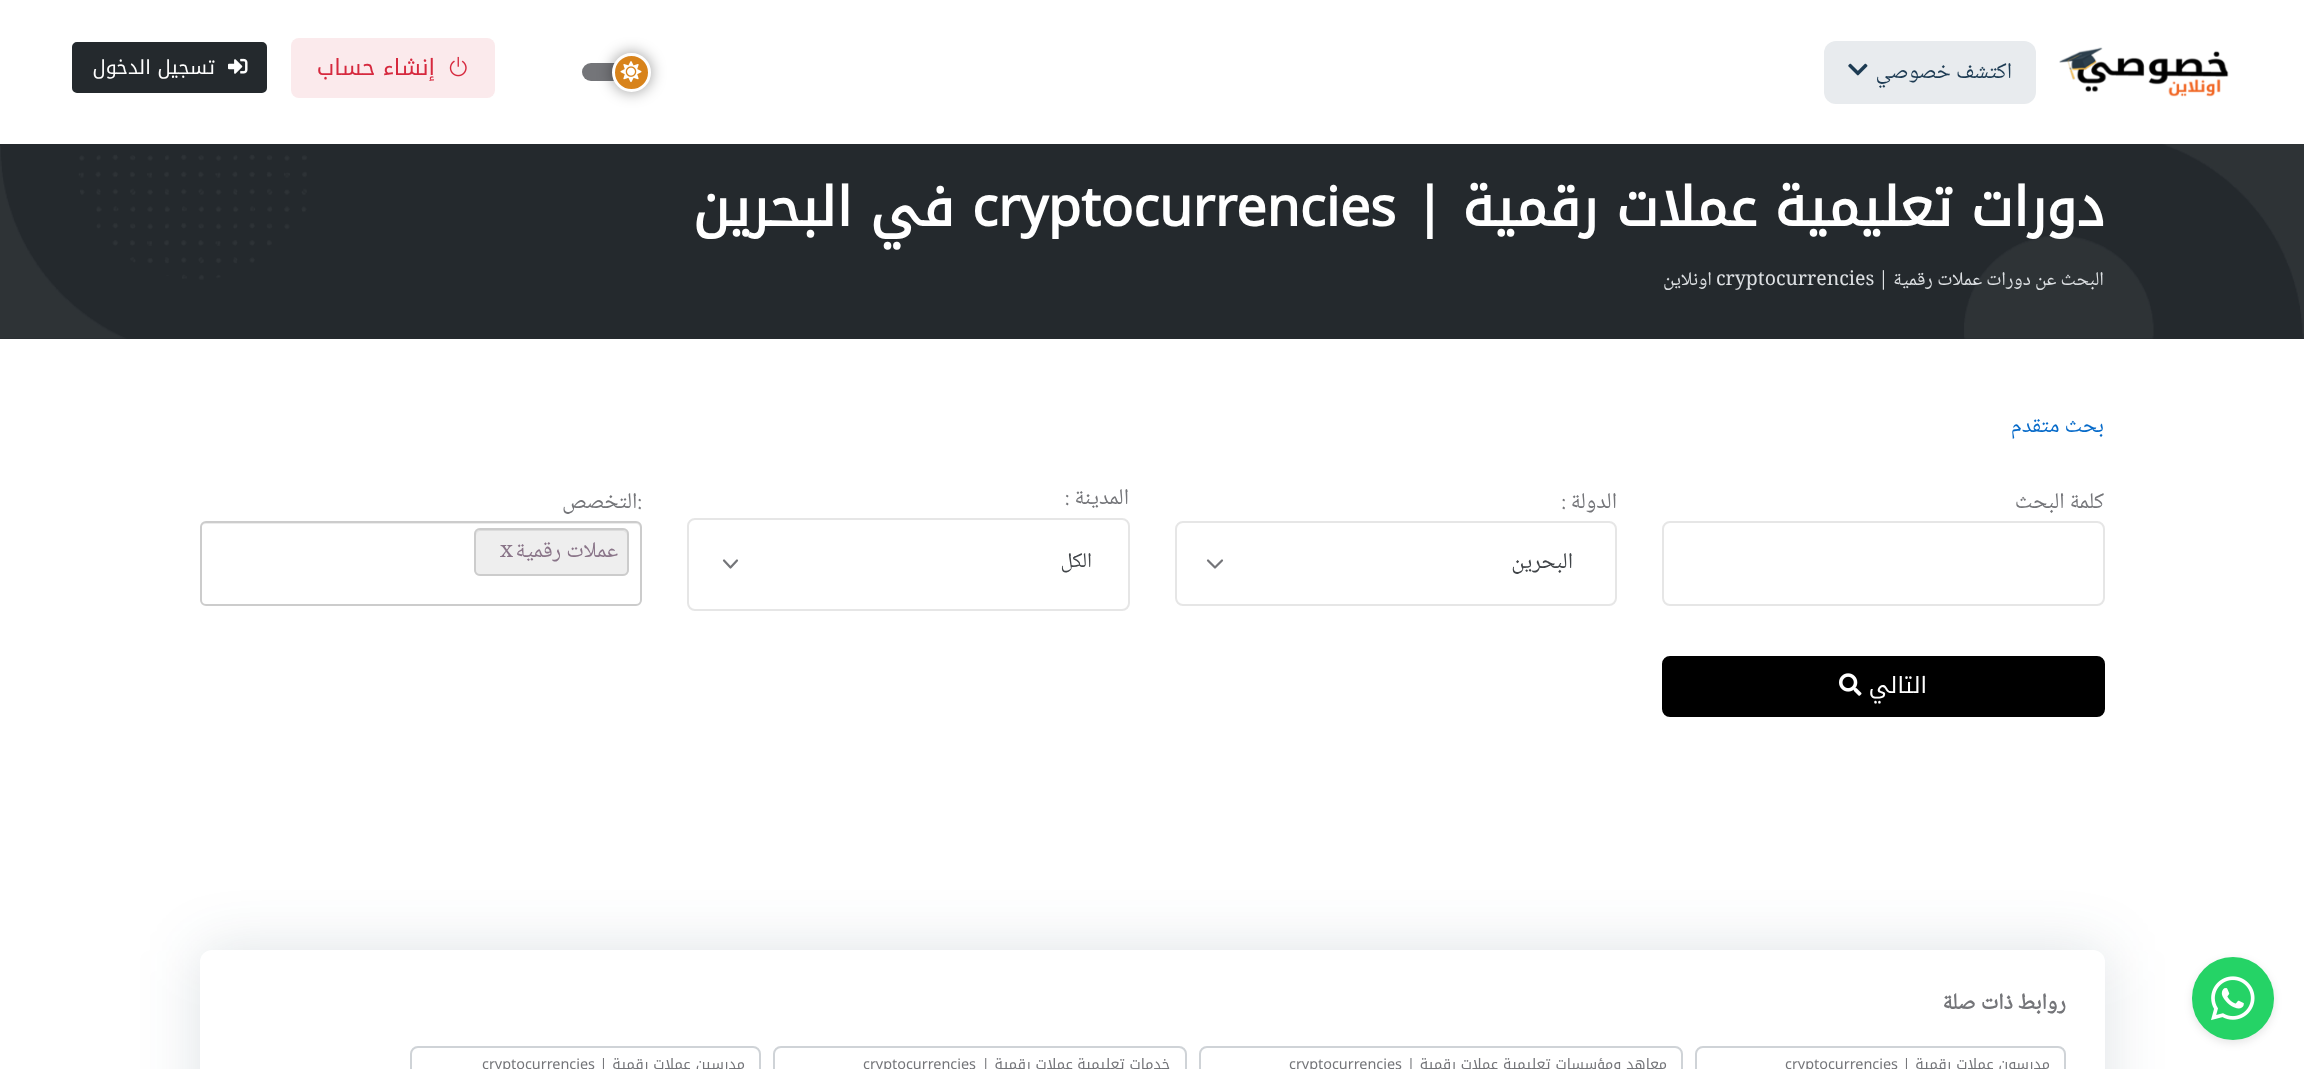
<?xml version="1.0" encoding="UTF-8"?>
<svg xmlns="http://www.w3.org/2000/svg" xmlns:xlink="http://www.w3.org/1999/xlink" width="2304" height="1069">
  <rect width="100%" height="100%" fill="#ffffff" />
  <image x="2059" y="47" width="170" height="50" xlink:href="image1.png" />
  <rect x="1824" y="41" width="212" height="63" rx="12" fill="#e8ebee" />
  <image x="1848" y="63" width="20" height="13" xlink:href="image2.png" />
  <rect x="582" y="63" width="63" height="18" rx="9" fill="#747579" />
  <rect x="612" y="53" width="39" height="39" rx="19.5" fill="#000000" fill-opacity="0.4" filter="blur(7.5px)" />
  <circle cx="631.5" cy="72.5" r="18" fill="#d8831b" stroke="#ffffff" stroke-width="3" />
  <image x="620" y="61" width="22" height="22" xlink:href="image3.png" />
  <rect x="291" y="38" width="204" height="60" rx="8" fill="#fbeaec" />
  <image x="449" y="56" width="18" height="21" xlink:href="image4.png" />
  <rect x="73" y="43" width="193" height="49" rx="4" fill="#24292d" stroke="#24292d" stroke-width="2" />
  <image x="228" y="58" width="20" height="16" xlink:href="image5.png" />
  <rect x="2192" y="960" width="82" height="83" rx="41" fill="#000000" fill-opacity="0.1" filter="blur(4px)" />
  <rect x="200" y="950" width="1905" height="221" rx="12" fill="#1d3a53" fill-opacity="0.15" filter="blur(30px)" />
  <rect x="2192" y="957" width="82" height="83" rx="41" fill="#25d366" />
  <image x="2211" y="976" width="44" height="45" xlink:href="image6.png" />
  <rect y="144" width="2304" height="195" fill="#24292d" />
  <image x="0" y="144" width="2304" height="195" xlink:href="image7.png" />
  <rect x="1663" y="522" width="441" height="83" rx="7" fill="none" stroke="#e6e6e6" stroke-width="2" />
  <rect x="1176" y="522" width="440" height="83" rx="7" fill="none" stroke="#e6e6e6" stroke-width="2" />
  <path d="M 1208 560.5 l 7 7 l 7 -7" fill="none" stroke="#747579" stroke-width="2.2" stroke-linecap="round" stroke-linejoin="round" />
  <rect x="688" y="519" width="441" height="91" rx="7" fill="none" stroke="#e6e6e6" stroke-width="2" />
  <path d="M 724 560.5 l 6.5 7 l 6.5 -7" fill="none" stroke="#747579" stroke-width="2.2" stroke-linecap="round" stroke-linejoin="round" />
  <path d="M 206 524 h 430 c 2 0 4 2 4 4 v 75 c 1 -1 1 -2 1 -3 v -73 c 0 -3 -2 -5 -5 -5 h -430 c -3 0 -5 2 -5 5 v 1 c 0 -2 2 -4 5 -4 z" fill="#ececec" />
  <rect x="201" y="522" width="440" height="83" rx="5" fill="none" stroke="#cccccc" stroke-width="2" />
  <rect x="474" y="528" width="155" height="48" rx="6" fill="#eeeeee" />
  <path d="M 480 531 h 142 c 3 0 5 2 5 5 v -1 c 0 -3 -2 -5 -5 -5 h -141 c -3 0 -5 2 -5 5 v 1 c 0 -3 2 -5 4 -5 z" fill="#dcdcdc" />
  <rect x="475" y="529" width="153" height="46" rx="5" fill="none" stroke="#cccccc" stroke-width="2" />
  <rect x="1663" y="657" width="441" height="59" rx="7" fill="#000000" stroke="#000000" stroke-width="2" />
  <image x="1839" y="673" width="23" height="23" xlink:href="image8.png" />
  <rect x="200" y="950" width="1905" height="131" rx="12" fill="#ffffff" />
  <rect x="1696" y="1047" width="369" height="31" rx="7" fill="none" stroke="#cfd3d7" stroke-width="2" />
  <rect x="1200" y="1047" width="482" height="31" rx="7" fill="none" stroke="#cfd3d7" stroke-width="2" />
  <rect x="774" y="1047" width="412" height="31" rx="7" fill="none" stroke="#cfd3d7" stroke-width="2" />
  <rect x="411" y="1047" width="349" height="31" rx="7" fill="none" stroke="#cfd3d7" stroke-width="2" />
  <text x="2012" y="78" style="font-family: Noto Naskh Arabic; font-size: 22.5px; direction: rtl; fill: #1d3b53">اكتشف خصوصي</text>
  <text x="435" y="75" style="font-family: Noto Kufi Arabic; font-size: 22.5px; direction: rtl; fill: #d6293e">إنشاء حساب</text>
  <text x="215" y="74" style="font-family: Noto Kufi Arabic; font-size: 19.5px; direction: rtl; fill: #ffffff">تسجيل الدخول</text>
  <text x="2104" y="226" style="font-family: Noto Kufi Arabic; font-size: 54px; font-weight: bold; direction: rtl; fill: #ffffff">دورات تعليمية</text>
  <text x="1757" y="226" style="font-family: Noto Kufi Arabic; font-size: 54px; font-weight: bold; direction: rtl; fill: #ffffff">عملات رقمية |</text>
  <text x="972" y="226" style="font-family: Noto Kufi Arabic; font-size: 54px; font-weight: bold; fill: #ffffff">cryptocurrencies</text>
  <text x="954" y="226" style="font-family: Noto Kufi Arabic; font-size: 54px; font-weight: bold; direction: rtl; fill: #ffffff">في البحرين</text>
  <text x="2104" y="285" style="font-family: Noto Naskh Arabic; font-size: 19.5px; direction: rtl; fill: #dde0e3">البحث عن دورات عملات رقمية |</text>
  <text x="1716" y="285" style="font-family: Noto Naskh Arabic; font-size: 19.5px; fill: #dde0e3">cryptocurrencies</text>
  <text x="1712" y="285" style="font-family: Noto Naskh Arabic; font-size: 19.5px; direction: rtl; fill: #dde0e3">اونلاين</text>
  <text x="2104" y="432" style="font-family: Noto Naskh Arabic; font-size: 22.5px; direction: rtl; fill: #066ac9">بحث متقدم</text>
  <text x="2104" y="508" style="font-family: Noto Naskh Arabic; font-size: 22.5px; direction: rtl; fill: #747579">كلمة البحث</text>
  <text x="1617" y="508" style="font-family: Noto Naskh Arabic; font-size: 22.5px; direction: rtl; fill: #747579">الدولة :</text>
  <text x="1573" y="568" style="font-family: Noto Naskh Arabic; font-size: 22.5px; direction: rtl; fill: #404448">البحرين</text>
  <text x="1129" y="504" style="font-family: Noto Naskh Arabic; font-size: 22.5px; direction: rtl; fill: #747579">المدينة :</text>
  <text x="1092" y="567" style="font-family: Noto Naskh Arabic; font-size: 21px; direction: rtl; fill: #404448">الكل</text>
  <text x="642" y="508" style="font-family: Noto Naskh Arabic; font-size: 22.5px; direction: rtl; fill: #747579">:التخصص</text>
  <text x="618" y="557" style="font-family: Noto Naskh Arabic; font-size: 22.5px; direction: rtl; fill: #897488">عملات رقمية</text>
  <text x="500" y="557" style="font-family: Noto Naskh Arabic; font-size: 22.5px; fill: #897488">x</text>
  <text x="1927" y="693" style="font-family: Noto Kufi Arabic; font-size: 22.5px; direction: rtl; fill: #ffffff">التالي</text>
  <text x="2066" y="1009" style="font-family: Noto Naskh Arabic; font-size: 22.5px; font-weight: bold; direction: rtl; fill: #747579">روابط ذات صلة</text>
  <text x="2050" y="1069" style="font-family: Noto Kufi Arabic; font-size: 14.4px; direction: rtl; fill: #747579">مدرسون عملات رقمية |</text>
  <text x="1785" y="1069" style="font-family: Noto Kufi Arabic; font-size: 14.4px; fill: #747579">cryptocurrencies</text>
  <text x="1667" y="1069" style="font-family: Noto Kufi Arabic; font-size: 14.4px; direction: rtl; fill: #747579">معاهد ومؤسسات تعليمية عملات رقمية |</text>
  <text x="1289" y="1069" style="font-family: Noto Kufi Arabic; font-size: 14.4px; fill: #747579">cryptocurrencies</text>
  <text x="1170" y="1069" style="font-family: Noto Kufi Arabic; font-size: 14.4px; direction: rtl; fill: #747579">خدمات تعليمية</text>
  <text x="1073" y="1069" style="font-family: Noto Kufi Arabic; font-size: 14.4px; direction: rtl; fill: #747579">عملات رقمية |</text>
  <text x="863" y="1069" style="font-family: Noto Kufi Arabic; font-size: 14.4px; fill: #747579">cryptocurrencies</text>
  <text x="745" y="1069" style="font-family: Noto Kufi Arabic; font-size: 14.4px; direction: rtl; fill: #747579">مدرسين عملات رقمية |</text>
  <text x="482" y="1069" style="font-family: Noto Kufi Arabic; font-size: 14.4px; fill: #747579">cryptocurrencies</text>
</svg>
